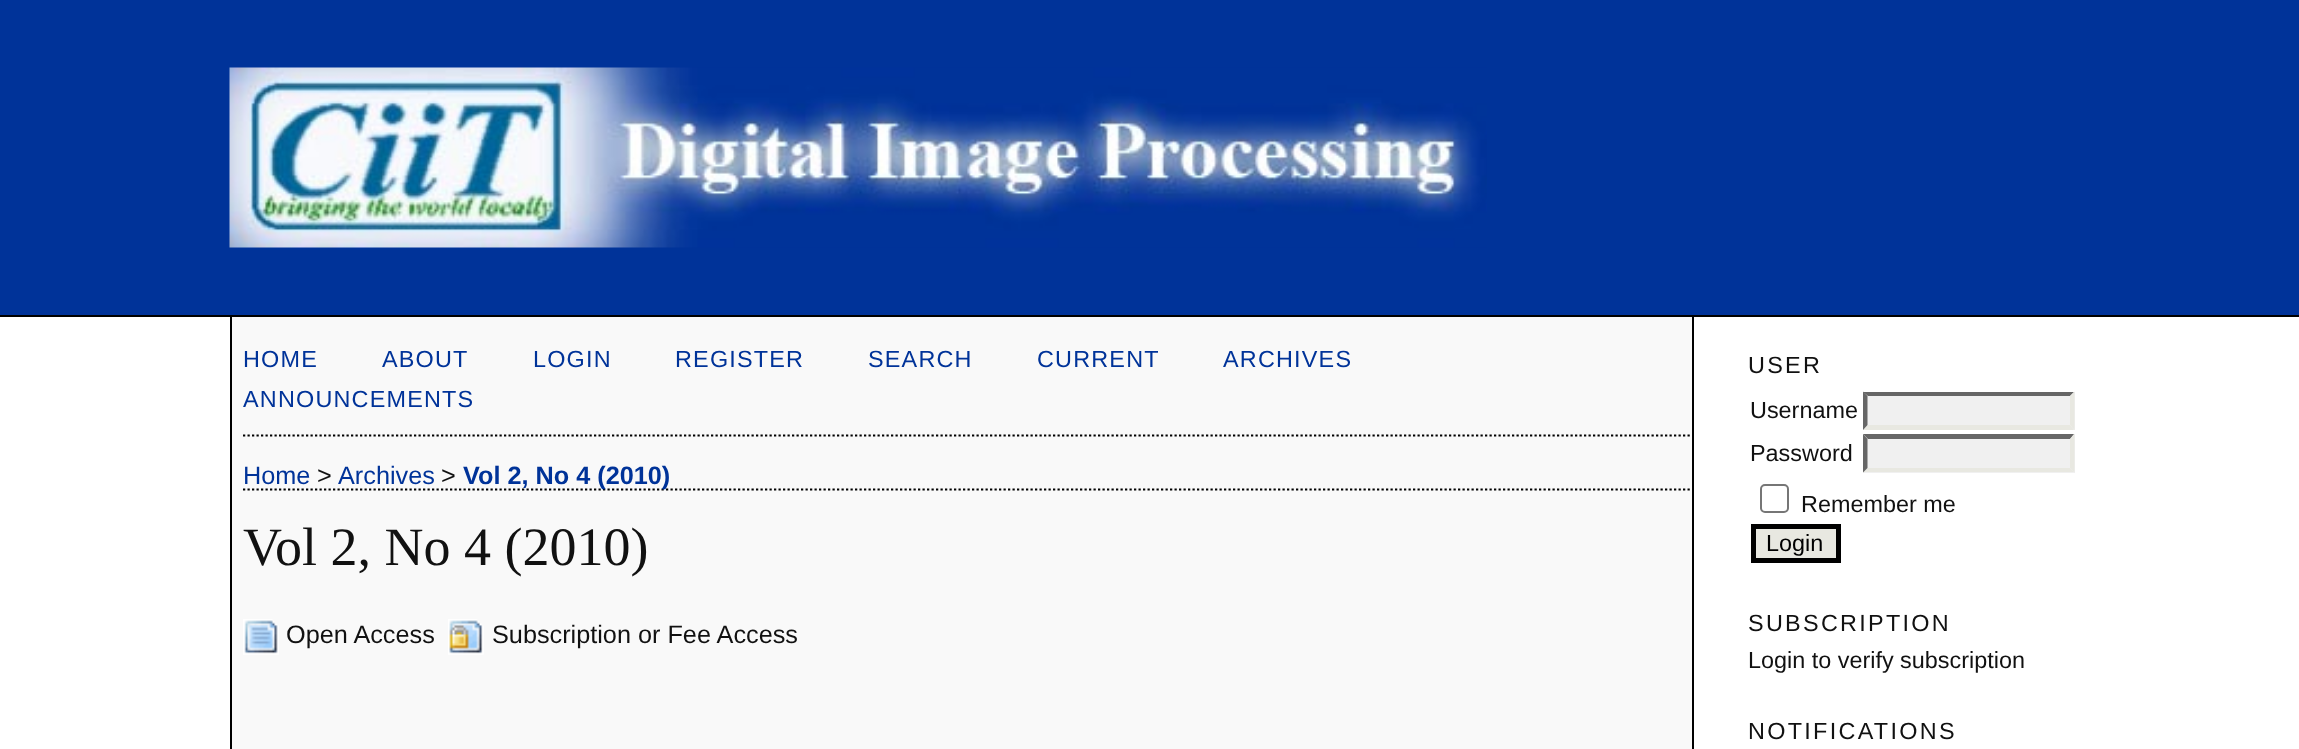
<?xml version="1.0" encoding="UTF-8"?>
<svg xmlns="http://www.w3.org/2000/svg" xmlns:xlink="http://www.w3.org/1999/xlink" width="2299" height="749">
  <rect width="100%" height="100%" fill="#ffffff" />
  <rect width="2299" height="315" fill="#003399" />
  <rect y="315" width="2299" height="2" fill="#000000" />
  <image x="229" y="67" width="1258" height="181" xlink:href="image1.png" />
  <rect x="232" y="317" width="1460" height="432" fill="#f9f9f9" />
  <rect x="1692" y="317" width="2" height="432" fill="#000000" />
  <rect x="230" y="317" width="2" height="432" fill="#000000" />
  <path d="M 243 435.5 h 1449" fill="none" stroke="#000000" stroke-width="2.2" stroke-dasharray="2.25 2.25" />
  <path d="M 243 489.5 h 1449" fill="none" stroke="#000000" stroke-width="2.2" stroke-dasharray="2.25 2.25" />
  <image x="243" y="619" width="36" height="36" xlink:href="image2.png" />
  <image x="448" y="619" width="36" height="36" xlink:href="image3.png" />
  <rect x="1863" y="392" width="212" height="38" fill="#f0f0f0" />
  <path d="M 1863 392 h 211 l -4 4 h -202 z" fill="#666666" />
  <path d="M 2074.5 391.5 v 38.5 l -4.5 -5 v -29 z" fill="#e8e8e1" />
  <path d="M 2074 430 h -211 l 5 -5 h 202 z" fill="#e8e8e1" />
  <path d="M 1863 430 v -38.5 l 4.5 4.5 v 29 z" fill="#666666" />
  <rect x="1863" y="434" width="212" height="39" fill="#f0f0f0" />
  <path d="M 1863 434 h 211 l -4 5 h -202 z" fill="#666666" />
  <path d="M 2074.5 434 v 38.5 l -4.5 -4.5 v -29 z" fill="#e8e8e1" />
  <path d="M 2074 472 h -211 l 5 -4 h 202 z" fill="#e8e8e1" />
  <path d="M 1863 472.5 v -38.5 l 4.5 5 v 29 z" fill="#666666" />
  <rect x="1761" y="485" width="27" height="27" rx="4" fill="none" stroke="#767676" stroke-width="2" />
  <rect x="1753.5" y="526.5" width="85" height="34" fill="#e8e8e1" stroke="#000000" stroke-width="5" />
  <text x="243" y="367" style="font-family: Liberation Sans; font-size: 23.4px; letter-spacing: 1.2px; fill: #003399">HOME</text>
  <text x="382" y="367" style="font-family: Liberation Sans; font-size: 23.4px; letter-spacing: 1.2px; fill: #003399">ABOUT</text>
  <text x="533" y="367" style="font-family: Liberation Sans; font-size: 23.4px; letter-spacing: 1.2px; fill: #003399">LOGIN</text>
  <text x="675" y="367" style="font-family: Liberation Sans; font-size: 23.4px; letter-spacing: 1.2px; fill: #003399">REGISTER</text>
  <text x="868" y="367" style="font-family: Liberation Sans; font-size: 23.4px; letter-spacing: 1.2px; fill: #003399">SEARCH</text>
  <text x="1037" y="367" style="font-family: Liberation Sans; font-size: 23.4px; letter-spacing: 1.2px; fill: #003399">CURRENT</text>
  <text x="1223" y="367" style="font-family: Liberation Sans; font-size: 23.4px; letter-spacing: 1.2px; fill: #003399">ARCHIVES</text>
  <text x="243" y="407" style="font-family: Liberation Sans; font-size: 23.4px; letter-spacing: 1.2px; fill: #003399">ANNOUNCEMENTS</text>
  <text x="243" y="484" style="font-family: Liberation Sans; font-size: 25.25px; fill: #003399">Home</text>
  <text x="317" y="484" style="font-family: Liberation Sans; font-size: 25.25px; fill: #111111">&gt;</text>
  <text x="338" y="484" style="font-family: Liberation Sans; font-size: 25.25px; fill: #003399">Archives</text>
  <text x="441" y="484" style="font-family: Liberation Sans; font-size: 25.25px; fill: #111111">&gt;</text>
  <text x="463" y="484" style="font-family: Liberation Sans; font-size: 25.25px; font-weight: bold; fill: #003399">Vol 2, No 4 (2010)</text>
  <text x="243" y="565" style="font-family: Liberation Serif; font-size: 54px; fill: #111111">Vol 2, No 4 (2010)</text>
  <text x="286" y="643" style="font-family: Liberation Sans; font-size: 25.25px; fill: #111111">Open Access</text>
  <text x="492" y="643" style="font-family: Liberation Sans; font-size: 25.25px; fill: #111111">Subscription or Fee Access</text>
  <text x="1748" y="373" style="font-family: Liberation Sans; font-size: 23.4px; letter-spacing: 2.3px; fill: #111111">USER</text>
  <text x="1750" y="418" style="font-family: Liberation Sans; font-size: 23.4px; fill: #111111">Username</text>
  <text x="1750" y="461" style="font-family: Liberation Sans; font-size: 23.4px; fill: #111111">Password</text>
  <text x="1801" y="512" style="font-family: Liberation Sans; font-size: 23.4px; fill: #111111">Remember me</text>
  <text x="1766" y="551" style="font-family: Liberation Sans; font-size: 23.4px; fill: #000000">Login</text>
  <text x="1748" y="631" style="font-family: Liberation Sans; font-size: 23.4px; letter-spacing: 2.3px; fill: #111111">SUBSCRIPTION</text>
  <text x="1748" y="668" style="font-family: Liberation Sans; font-size: 23.4px; fill: #111111">Login to verify subscription</text>
  <text x="1748" y="739" style="font-family: Liberation Sans; font-size: 23.4px; letter-spacing: 2.3px; fill: #111111">NOTIFICATIONS</text>
</svg>
